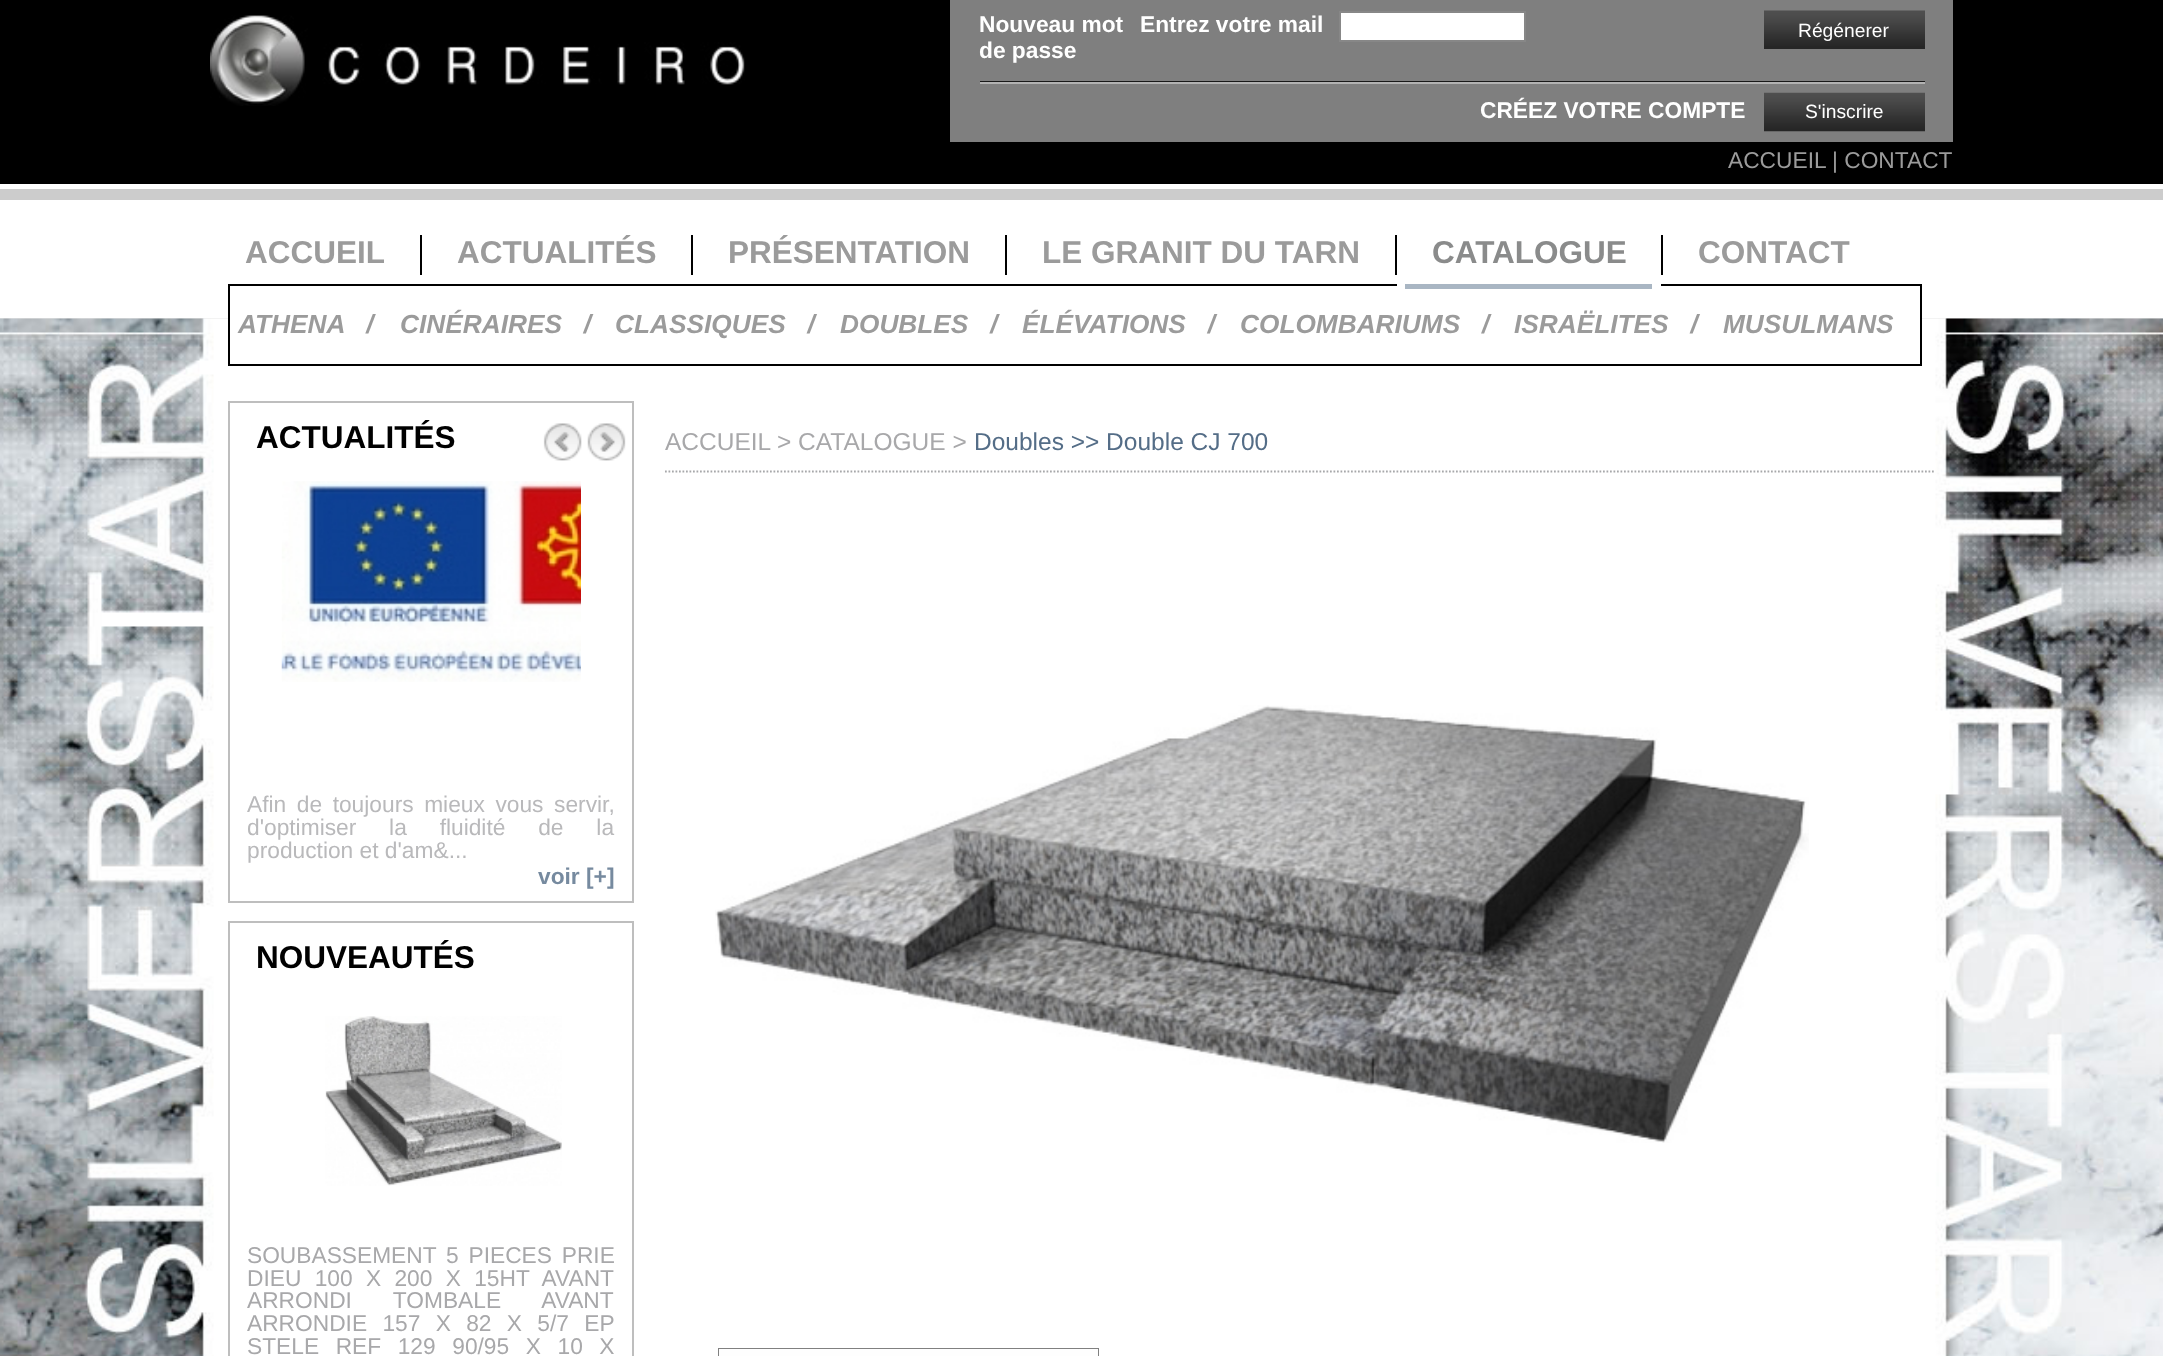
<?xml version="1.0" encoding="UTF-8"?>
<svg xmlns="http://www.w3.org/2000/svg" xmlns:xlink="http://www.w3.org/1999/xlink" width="2163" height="1356">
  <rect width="100%" height="100%" fill="#ffffff" />
  <image x="0" y="318" width="2163" height="1" xlink:href="image1.png" />
  <rect width="2163" height="184" fill="#000000" />
  <image x="210" y="15" width="535" height="91" xlink:href="image2.png" />
  <rect x="950" width="1003" height="142" fill="#7f7f7f" />
  <rect x="1340" y="12" width="185" height="29" fill="#ffffff" stroke="#878787" stroke-width="2" />
  <image x="1764" y="10" width="161" height="39" xlink:href="image3.png" />
  <rect x="980" y="81" width="945" height="1" fill="#191919" />
  <rect x="980" y="82" width="945" height="2" fill="#b2b2b2" />
  <image x="1764" y="92" width="161" height="40" xlink:href="image4.png" />
  <rect y="189" width="2163" height="11" fill="#cccccc" />
  <rect x="420" y="235" width="2" height="40" fill="#000000" />
  <rect x="691" y="235" width="2" height="40" fill="#000000" />
  <rect x="1005" y="235" width="2" height="40" fill="#000000" />
  <rect x="1395" y="235" width="2" height="40" fill="#000000" />
  <rect x="1661" y="235" width="2" height="40" fill="#000000" />
  <image x="0" y="318" width="2163" height="1038" xlink:href="image5.png" />
  <rect x="230" y="318" width="1690" height="1" fill="#ffffff" />
  <rect x="229" y="285" width="1692" height="80" fill="none" stroke="#000000" stroke-width="2" />
  <rect x="1397" y="284" width="264" height="2" fill="#ffffff" />
  <rect x="1405" y="284" width="247" height="5" fill="#a9b6c3" />
  <rect x="229" y="402" width="404" height="500" fill="none" stroke="#bebebe" stroke-width="2" />
  <image x="281" y="481" width="300" height="201" xlink:href="image6.png" />
  <image x="543" y="423" width="39" height="38" xlink:href="image7.png" />
  <image x="587" y="423" width="39" height="38" xlink:href="image8.png" />
  <rect x="229" y="922" width="404" height="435" fill="none" stroke="#bebebe" stroke-width="2" />
  <image x="325" y="1016" width="237" height="170" xlink:href="image9.png" />
  <path d="M 665 471.5 h 1269" fill="none" stroke="#a7a8aa" stroke-width="1.8" stroke-dasharray="1.75 1.75" />
  <image x="715" y="705" width="1094" height="438" xlink:href="image10.png" />
  <rect x="719" y="1349" width="379" height="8" fill="none" stroke="#808080" stroke-width="2" />
  <rect x="719" y="1349" width="379" height="7" fill="#fefefe" />
  <text x="979" y="32" style="font-family: Liberation Sans; font-size: 22.75px; font-weight: bold; fill: #ffffff">Nouveau mot</text>
  <text x="979" y="58" style="font-family: Liberation Sans; font-size: 22.75px; font-weight: bold; fill: #ffffff">de passe</text>
  <text x="1140" y="32" style="font-family: Liberation Sans; font-size: 22.75px; font-weight: bold; fill: #ffffff">Entrez votre mail</text>
  <text x="1798" y="37" style="font-family: Liberation Sans; font-size: 19.25px; fill: #ffffff">Régénerer</text>
  <text x="1480" y="118" style="font-family: Liberation Sans; font-size: 22.75px; font-weight: bold; fill: #ffffff">CRÉEZ VOTRE COMPTE</text>
  <text x="1805" y="118" style="font-family: Liberation Sans; font-size: 19.25px; fill: #ffffff">S'inscrire</text>
  <text x="1728" y="168" style="font-family: Liberation Sans; font-size: 22.75px; fill: #9b9b9b">ACCUEIL</text>
  <text x="1832" y="168" style="font-family: Liberation Sans; font-size: 22.75px; fill: #9b9b9b">| CONTACT</text>
  <text x="245" y="263" style="font-family: Liberation Sans; font-size: 31.5px; font-weight: bold; fill: #9b9b9b">ACCUEIL</text>
  <text x="457" y="263" style="font-family: Liberation Sans; font-size: 31.5px; font-weight: bold; fill: #9b9b9b">ACTUALITÉS</text>
  <text x="728" y="263" style="font-family: Liberation Sans; font-size: 31.5px; font-weight: bold; fill: #9b9b9b">PRÉSENTATION</text>
  <text x="1042" y="263" style="font-family: Liberation Sans; font-size: 31.5px; font-weight: bold; fill: #9b9b9b">LE GRANIT DU TARN</text>
  <text x="1432" y="263" style="font-family: Liberation Sans; font-size: 31.5px; font-weight: bold; fill: #8a8b8b">CATALOGUE</text>
  <text x="1698" y="263" style="font-family: Liberation Sans; font-size: 31.5px; font-weight: bold; fill: #9b9b9b">CONTACT</text>
  <text x="238" y="333" style="font-family: Liberation Sans; font-size: 26.25px; font-weight: bold; font-style: italic; fill: #9b9b9b" xml:space="preserve">ATHENA   /</text>
  <text x="400" y="333" style="font-family: Liberation Sans; font-size: 26.25px; font-weight: bold; font-style: italic; fill: #9b9b9b" xml:space="preserve">CINÉRAIRES   /</text>
  <text x="615" y="333" style="font-family: Liberation Sans; font-size: 26.25px; font-weight: bold; font-style: italic; fill: #9b9b9b" xml:space="preserve">CLASSIQUES   /</text>
  <text x="840" y="333" style="font-family: Liberation Sans; font-size: 26.25px; font-weight: bold; font-style: italic; fill: #9b9b9b" xml:space="preserve">DOUBLES   /</text>
  <text x="1022" y="333" style="font-family: Liberation Sans; font-size: 26.25px; font-weight: bold; font-style: italic; fill: #9b9b9b" xml:space="preserve">ÉLÉVATIONS   /</text>
  <text x="1240" y="333" style="font-family: Liberation Sans; font-size: 26.25px; font-weight: bold; font-style: italic; fill: #9b9b9b" xml:space="preserve">COLOMBARIUMS   /</text>
  <text x="1514" y="333" style="font-family: Liberation Sans; font-size: 26.25px; font-weight: bold; font-style: italic; fill: #9b9b9b" xml:space="preserve">ISRAËLITES   /</text>
  <text x="1723" y="333" style="font-family: Liberation Sans; font-size: 26.25px; font-weight: bold; font-style: italic; fill: #9b9b9b">MUSULMANS</text>
  <text x="256" y="448" style="font-family: Liberation Sans; font-size: 31.5px; font-weight: bold; fill: #000000">ACTUALITÉS</text>
  <text x="247" y="812" word-spacing="4.25" style="font-family: Liberation Sans; font-size: 22.75px; fill: #b9b9bb">Afin de toujours mieux vous servir,</text>
  <text x="247" y="835" word-spacing="26.5" style="font-family: Liberation Sans; font-size: 22.75px; fill: #b9b9bb">d'optimiser la fluidité de la</text>
  <text x="247" y="858" style="font-family: Liberation Sans; font-size: 22.75px; fill: #b9b9bb">production et d'am&amp;...</text>
  <text x="538" y="884" style="font-family: Liberation Sans; font-size: 22.75px; font-weight: bold; fill: #768a9f">voir [+]</text>
  <text x="256" y="968" style="font-family: Liberation Sans; font-size: 31.5px; font-weight: bold; fill: #000000">NOUVEAUTÉS</text>
  <text x="247" y="1263" word-spacing="3.5" style="font-family: Liberation Sans; font-size: 22.75px; fill: #a8a8aa">SOUBASSEMENT 5 PIECES PRIE</text>
  <text x="247" y="1286" word-spacing="7" style="font-family: Liberation Sans; font-size: 22.75px; fill: #a8a8aa">DIEU 100 X 200 X 15HT AVANT</text>
  <text x="247" y="1308" word-spacing="35" style="font-family: Liberation Sans; font-size: 22.75px; fill: #a8a8aa">ARRONDI TOMBALE AVANT</text>
  <text x="247" y="1331" word-spacing="9" style="font-family: Liberation Sans; font-size: 22.75px; fill: #a8a8aa">ARRONDIE 157 X 82 X 5/7 EP</text>
  <text x="247" y="1354" word-spacing="10.25" style="font-family: Liberation Sans; font-size: 22.75px; fill: #a8a8aa">STELE REF 129 90/95 X 10 X</text>
  <text x="665" y="450" style="font-family: Liberation Sans; font-size: 24.5px; fill: #a8a8aa">ACCUEIL</text>
  <text x="777" y="450" style="font-family: Liberation Sans; font-size: 24.5px; fill: #a8a8aa">&gt; CATALOGUE &gt;</text>
  <text x="974" y="450" style="font-family: Liberation Sans; font-size: 24.5px; fill: #546d87">Doubles &gt;&gt; Double CJ 700</text>
</svg>
